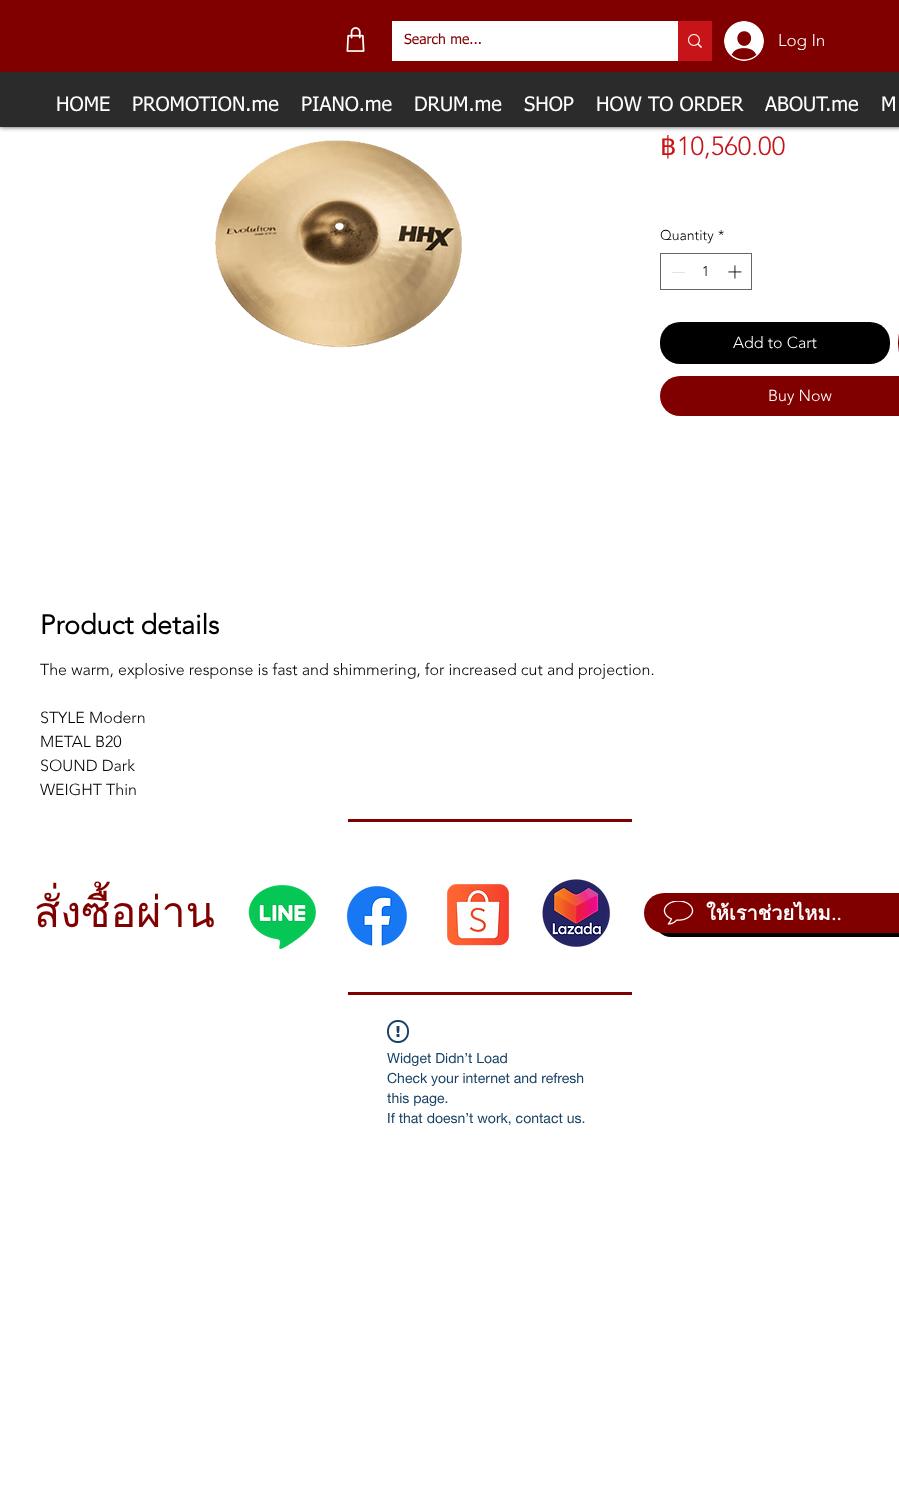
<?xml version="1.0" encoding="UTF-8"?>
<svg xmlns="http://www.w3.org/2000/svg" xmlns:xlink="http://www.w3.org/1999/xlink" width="899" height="1495">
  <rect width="100%" height="100%" fill="#ffffff" />
  <rect width="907" height="127" fill="#000000" fill-opacity="0.7" filter="blur(2.5px)" />
  <rect width="899" height="72" fill="#800000" />
  <image x="346" y="27" width="19" height="25" xlink:href="image1.png" />
  <rect x="392" y="21" width="286" height="40" fill="#ffffff" />
  <rect x="678" y="21" width="34" height="40" fill="#c71418" />
  <image x="688" y="34" width="14" height="14" xlink:href="image2.png" />
  <image x="724" y="21" width="40" height="40" xlink:href="image3.png" />
  <rect y="72" width="899" height="55" fill="#2b2b2b" />
  <image x="215" y="140" width="247" height="208" xlink:href="image4.png" />
  <rect x="660.5" y="253.5" width="91" height="36" fill="none" stroke="#666666" />
  <rect x="672" y="272" width="13" height="1" fill="#e3e3e3" />
  <image x="728" y="265" width="14" height="14" xlink:href="image5.png" />
  <rect x="660" y="322" width="230" height="42" rx="20" fill="#000000" />
  <rect x="898.5" y="322.5" width="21" height="41" rx="19.5" fill="none" stroke="#800000" />
  <rect x="660" y="376" width="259" height="40" rx="20" fill="#800000" />
  <rect x="348" y="819" width="284" height="3" fill="#800000" />
  <image x="248" y="885" width="68" height="64" xlink:href="image6.png" />
  <image x="346" y="886" width="61" height="60" xlink:href="image7.png" />
  <image x="447" y="884" width="63" height="62" xlink:href="image8.png" />
  <image x="542" y="879" width="68" height="68" xlink:href="image9.png" />
  <rect x="654" y="903" width="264" height="34" rx="17" fill="#000000" filter="blur(0.5px)" />
  <rect x="644" y="893" width="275" height="40" rx="20" fill="#800000" />
  <image x="663" y="901" width="31" height="24" xlink:href="image10.png" />
  <rect x="348" y="992" width="284" height="3" fill="#800000" />
  <image x="387" y="1020" width="22" height="23" xlink:href="image11.png" />
  <text x="404" y="44" style="font-family: tahoma; font-size: 14px; fill: #800000">Search me...</text>
  <text x="778" y="46" style="font-family: 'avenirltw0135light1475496'; font-size: 17px; font-weight: 300; fill: #ffffff">Log In</text>
  <text x="56" y="111" style="font-family: tahoma; font-size: 20px; fill: #ffffff">HOME</text>
  <text x="132" y="111" style="font-family: tahoma; font-size: 20px; fill: #ffffff">PROMOTION.me</text>
  <text x="301" y="111" style="font-family: tahoma; font-size: 20px; fill: #ffffff">PIANO.me</text>
  <text x="414" y="111" style="font-family: tahoma; font-size: 20px; fill: #ffffff">DRUM.me</text>
  <text x="524" y="111" style="font-family: tahoma; font-size: 20px; fill: #ffffff">SHOP</text>
  <text x="596" y="111" style="font-family: tahoma; font-size: 20px; fill: #ffffff">HOW TO ORDER</text>
  <text x="765" y="111" style="font-family: tahoma; font-size: 20px; fill: #ffffff">ABOUT.me</text>
  <text x="881" y="111" style="font-family: tahoma; font-size: 20px; fill: #ffffff">M</text>
  <text x="660" y="155" style="font-family: DejaVu Sans; font-size: 26px; fill: #c71418">฿</text>
  <text x="677" y="155" style="font-family: 'avenirltw0135light1475496'; font-size: 26px; font-weight: 300; fill: #c71418">10,560.00</text>
  <text x="660" y="240" style="font-family: 'avenirltw0135light1475496'; font-size: 14px; font-weight: 300; fill: #000000">Quantity</text>
  <text x="718" y="240" style="font-family: 'avenirltw0135light1475496'; font-size: 14px; font-weight: 300; fill: #000000">*</text>
  <text x="702" y="276" style="font-family: 'avenirltw0135light1475496'; font-size: 14px; font-weight: 300; fill: #000000">1</text>
  <text x="733" y="348" style="font-family: 'avenirltw0135light1475496'; font-size: 16px; font-weight: 300; fill: #ffffff">Add to Cart</text>
  <text x="768" y="401" style="font-family: 'avenirltw0135light1475496'; font-size: 16px; font-weight: 300; fill: #ffffff">Buy Now</text>
  <text x="40" y="634" style="font-family: 'avenirltw0135light1475496'; font-size: 27px; font-weight: bold; fill: #000000">Product details</text>
  <text x="40" y="675" style="font-family: 'avenirltw0135light1475496'; font-size: 16px; font-weight: 300; fill: #000000">The warm, explosive response is fast and shimmering, for increased cut and projection.</text>
  <text x="40" y="723" style="font-family: 'avenirltw0135light1475496'; font-size: 16px; font-weight: 300; fill: #000000">STYLE Modern</text>
  <text x="40" y="747" style="font-family: 'avenirltw0135light1475496'; font-size: 16px; font-weight: 300; fill: #000000">METAL B20</text>
  <text x="40" y="771" style="font-family: 'avenirltw0135light1475496'; font-size: 16px; font-weight: 300; fill: #000000">SOUND Dark</text>
  <text x="40" y="795" style="font-family: 'avenirltw0135light1475496'; font-size: 16px; font-weight: 300; fill: #000000">WEIGHT Thin</text>
  <text x="34" y="927" style="font-family: Loma; font-size: 43px; fill: #800000">สั่งซื้อผ่าน</text>
  <text x="706" y="920" style="font-family: Loma; font-size: 20px; font-weight: bold; fill: #ffffff">ให้เราช่วยไหม</text>
  <text x="831" y="920" style="font-family: 'avenirltw0135light1475496'; font-size: 20px; font-weight: bold; fill: #ffffff">..</text>
  <text x="387" y="1063" style="font-family: Helvetica Neue; font-size: 14px; fill: #174165">Widget Didn’t Load</text>
  <text x="387" y="1083" style="font-family: Helvetica Neue; font-size: 14px; fill: #174165">Check your internet and refresh</text>
  <text x="387" y="1103" style="font-family: Helvetica Neue; font-size: 14px; fill: #174165">this page.</text>
  <text x="387" y="1123" style="font-family: Helvetica Neue; font-size: 14px; fill: #174165">If that doesn’t work, contact us.</text>
</svg>
